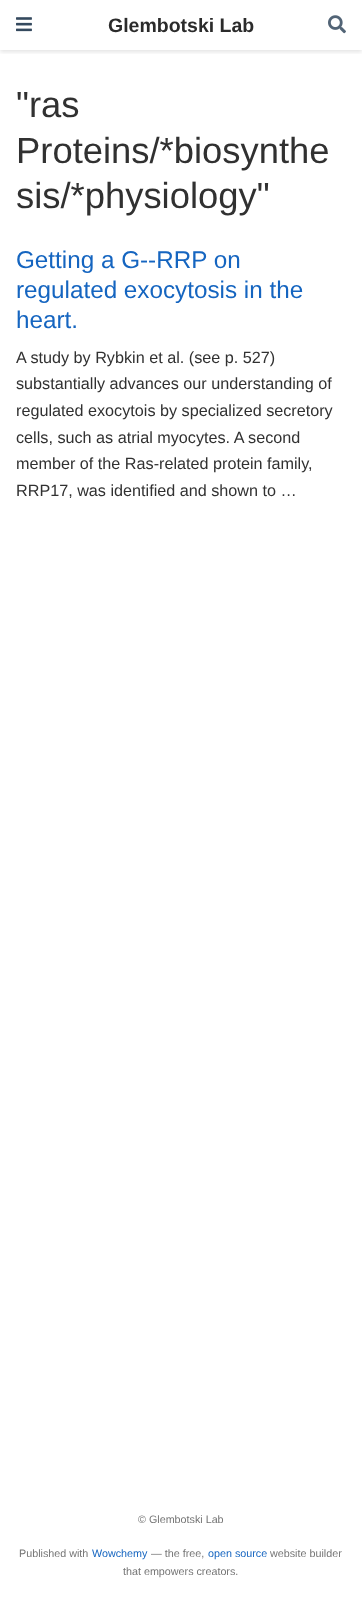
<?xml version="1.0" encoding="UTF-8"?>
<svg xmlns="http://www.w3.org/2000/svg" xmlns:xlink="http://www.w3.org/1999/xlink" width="362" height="1597">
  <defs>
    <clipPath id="clip1"><rect x="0" y="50" width="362" height="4" /></clipPath>
  </defs>
  <rect width="100%" height="100%" fill="#ffffff" />
  <g clip-path="url(#clip1)">
    <rect y="2" width="362" height="50" fill="#000000" fill-opacity="0.11" filter="blur(2px)" />
  </g>
  <image x="16" y="17" width="16" height="15" xlink:href="image1.png" />
  <image x="328" y="15" width="18" height="19" xlink:href="image2.png" />
  <text x="108" y="32" style="font-family: Liberation Sans; font-size: 19.5px; font-weight: bold; fill: #2b2b2b">Glembotski Lab</text>
  <text x="16" y="117" style="font-family: Liberation Sans; font-size: 36.4px; fill: #313131">"ras</text>
  <text x="16" y="163" style="font-family: Liberation Sans; font-size: 36.4px; fill: #313131">Proteins/*biosynthe</text>
  <text x="16" y="208" style="font-family: Liberation Sans; font-size: 36.4px; fill: #313131">sis/*physiology"</text>
  <text x="16" y="268" style="font-family: Liberation Sans; font-size: 24.25px; fill: #1565c0">Getting a G--RRP on</text>
  <text x="16" y="298" style="font-family: Liberation Sans; font-size: 24.25px; fill: #1565c0">regulated exocytosis in the</text>
  <text x="16" y="328" style="font-family: Liberation Sans; font-size: 24.25px; fill: #1565c0">heart.</text>
  <text x="16" y="363" style="font-family: Liberation Sans; font-size: 16.2px; fill: #313131">A study by Rybkin et al. (see p. 527)</text>
  <text x="16" y="389" style="font-family: Liberation Sans; font-size: 16.2px; fill: #313131">substantially advances our understanding of</text>
  <text x="16" y="416" style="font-family: Liberation Sans; font-size: 16.2px; fill: #313131">regulated exocytois by specialized secretory</text>
  <text x="16" y="443" style="font-family: Liberation Sans; font-size: 16.2px; fill: #313131">cells, such as atrial myocytes. A second</text>
  <text x="16" y="469" style="font-family: Liberation Sans; font-size: 16.2px; fill: #313131">member of the Ras-related protein family,</text>
  <text x="16" y="496" style="font-family: Liberation Sans; font-size: 16.2px; fill: #313131">RRP17, was identified and shown to …</text>
  <text x="138" y="1523" style="font-family: Liberation Sans; font-size: 10.75px; fill: #757575">© Glembotski Lab</text>
  <text x="19" y="1557" style="font-family: Liberation Sans; font-size: 10.75px; fill: #757575">Published with</text>
  <text x="92" y="1557" style="font-family: Liberation Sans; font-size: 10.75px; fill: #1565c0">Wowchemy</text>
  <text x="151" y="1557" style="font-family: Liberation Sans; font-size: 10.75px; fill: #757575">— the free,</text>
  <text x="208" y="1557" style="font-family: Liberation Sans; font-size: 10.75px; fill: #1565c0">open source</text>
  <text x="270" y="1557" style="font-family: Liberation Sans; font-size: 10.75px; fill: #757575">website builder</text>
  <text x="123" y="1575" style="font-family: Liberation Sans; font-size: 10.75px; fill: #757575">that empowers creators.</text>
</svg>
